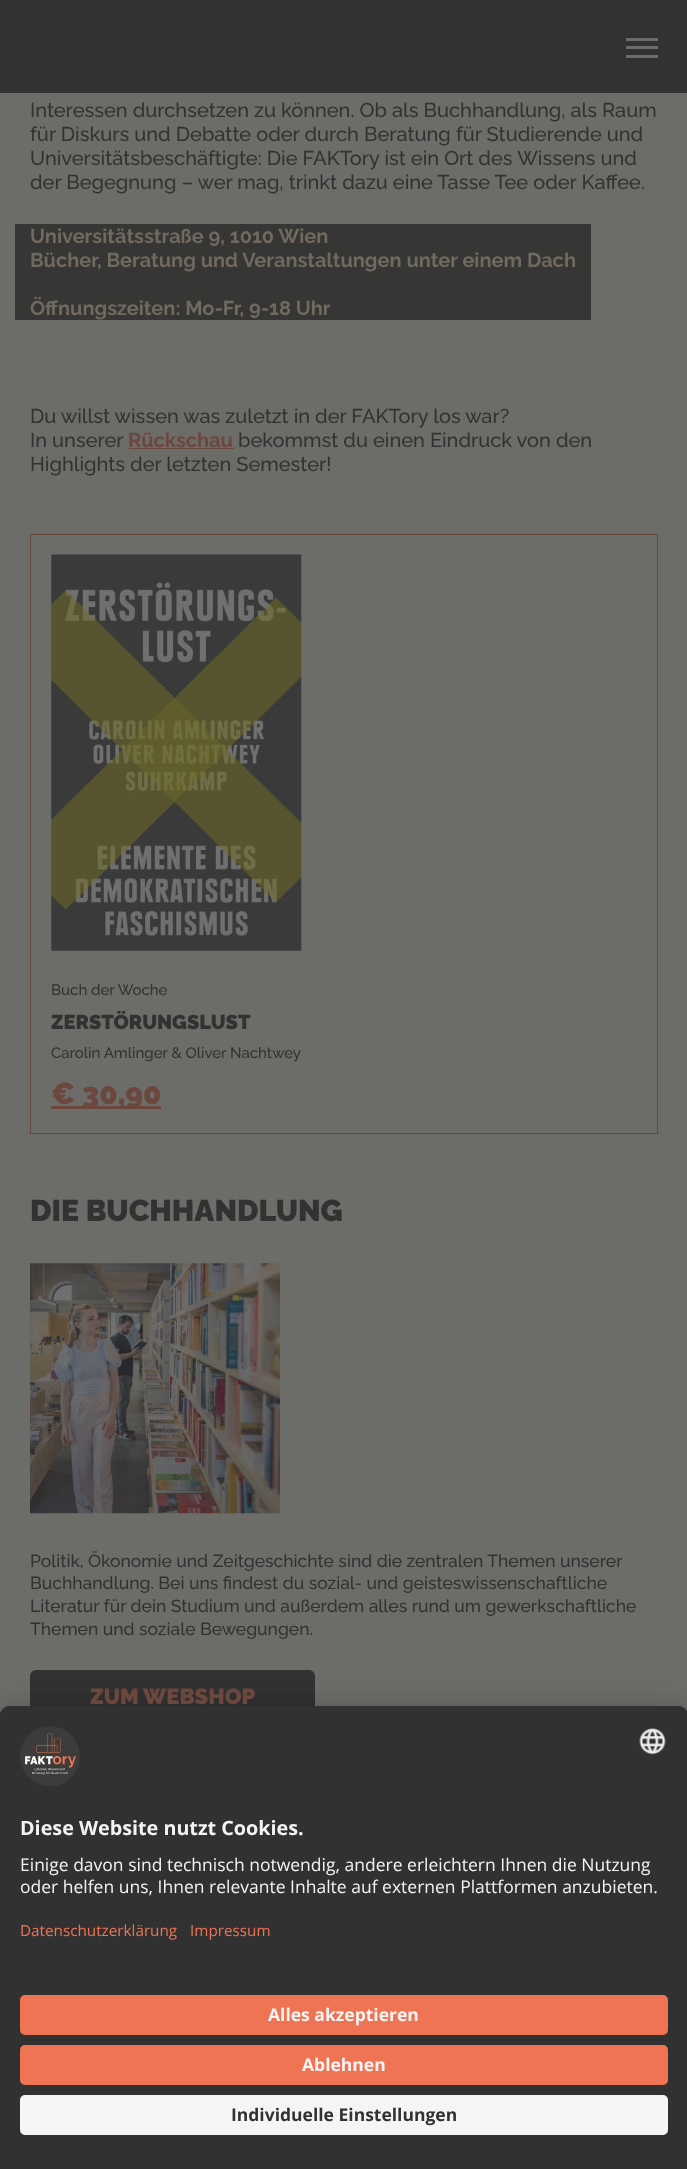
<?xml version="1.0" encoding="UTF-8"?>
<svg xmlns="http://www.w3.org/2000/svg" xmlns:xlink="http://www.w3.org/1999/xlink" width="687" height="2169">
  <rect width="100%" height="100%" fill="#6c6c68" />
  <rect width="687" height="93" fill="#323232" />
  <rect x="626" y="38" width="32" height="3" fill="#6c6c68" />
  <rect x="626" y="46" width="32" height="3" fill="#6c6c68" />
  <rect x="626" y="55" width="32" height="3" fill="#6c6c68" />
  <rect x="15" y="224" width="576" height="96" fill="#363635" />
  <rect x="129" y="448" width="105" height="1" fill="#6b473d" />
  <rect x="30.5" y="534.5" width="627" height="599" fill="none" stroke="#6b473d" />
  <image x="51" y="554" width="251" height="397" xlink:href="image1.png" />
  <rect x="51" y="1106" width="110" height="3" fill="#6b473d" />
  <image x="30" y="1263" width="250" height="251" xlink:href="image2.png" />
  <rect x="30" y="1670" width="285" height="53" rx="6" fill="#323232" />
  <rect y="1731" width="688" height="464" rx="10" fill="#000000" fill-opacity="0.3" filter="blur(17.5px)" />
  <rect y="1713" width="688" height="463" rx="10" fill="#000000" fill-opacity="0.22" filter="blur(16px)" />
  <path d="M 10 1706 h 668 c 5.5 0 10 4.5 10 10 v 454 h -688 v -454 c 0 -5.5 4.5 -10 10 -10 z" fill="#313131" />
  <path d="M 10 1706 h 668 c 5.5 0 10 4.5 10 10 v 264 h -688 v -264 c 0 -5.5 4.5 -10 10 -10 z" fill="#313131" />
  <image x="20" y="1726" width="60" height="60" xlink:href="image3.png" />
  <image x="639" y="1728" width="27" height="27" xlink:href="image4.png" />
  <rect x="20" y="1995" width="648" height="40" rx="5" fill="#ee7454" />
  <rect x="20" y="2045" width="648" height="40" rx="5" fill="#ee7454" />
  <rect x="20" y="2095" width="648" height="40" rx="5" fill="#f5f5f5" />
  <text x="30" y="117" style="font-family: Raleway; font-size: 20px; font-weight: 100; fill: #323232">Interessen durchsetzen zu können. Ob als Buchhandlung, als Raum</text>
  <text x="30" y="141" style="font-family: Raleway; font-size: 20px; font-weight: 100; fill: #323232">für Diskurs und Debatte oder durch Beratung für Studierende und</text>
  <text x="30" y="165" style="font-family: Raleway; font-size: 20px; font-weight: 100; fill: #323232">Universitätsbeschäftigte: Die FAKTory ist ein Ort des Wissens und</text>
  <text x="30" y="189" style="font-family: Raleway; font-size: 20px; font-weight: 100; fill: #323232">der Begegnung – wer mag, trinkt dazu eine Tasse Tee oder Kaffee.</text>
  <text x="30" y="243" style="font-family: 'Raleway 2'; font-size: 20px; font-weight: 100; fill: #70695d">Universitätsstraße 9, 1010 Wien</text>
  <text x="30" y="267" style="font-family: 'Raleway 2'; font-size: 20px; font-weight: 100; fill: #70695d">Bücher, Beratung und Veranstaltungen unter einem Dach</text>
  <text x="30" y="315" style="font-family: 'Raleway 2'; font-size: 20px; font-weight: 100; fill: #70695d">Öffnungszeiten: Mo-Fr, 9-18 Uhr</text>
  <text x="30" y="423" style="font-family: Raleway; font-size: 20px; font-weight: 100; fill: #323232">Du willst wissen was zuletzt in der FAKTory los war?</text>
  <text x="30" y="447" style="font-family: Raleway; font-size: 20px; font-weight: 100; fill: #323232">In unserer</text>
  <text x="128" y="447" style="font-family: 'Raleway 2'; font-size: 20px; font-weight: 100; fill: #6b473d">Rückschau</text>
  <text x="238" y="447" style="font-family: Raleway; font-size: 20px; font-weight: 100; fill: #323232">bekommst du einen Eindruck von den</text>
  <text x="30" y="471" style="font-family: Raleway; font-size: 20px; font-weight: 100; fill: #323232">Highlights der letzten Semester!</text>
  <text x="51" y="995" style="font-family: Raleway; font-size: 15px; font-weight: 100; fill: #323232">Buch der Woche</text>
  <text x="51" y="1029" style="font-family: 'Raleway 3'; font-size: 20px; font-weight: 100; fill: #323232">ZERSTÖRUNGSLUST</text>
  <text x="51" y="1058" style="font-family: Raleway; font-size: 15px; font-weight: 100; fill: #323232">Carolin Amlinger &amp; Oliver Nachtwey</text>
  <text x="51" y="1104" style="font-family: 'Raleway 3'; font-size: 30px; font-weight: 100; fill: #6b473d">€ 30,90</text>
  <text x="30" y="1221" style="font-family: 'Raleway 3'; font-size: 30px; font-weight: 100; fill: #323232">DIE BUCHHANDLUNG</text>
  <text x="30" y="1567" style="font-family: Raleway; font-size: 17.5px; font-weight: 100; fill: #323232">Politik, Ökonomie und Zeitgeschichte sind die zentralen Themen unserer</text>
  <text x="30" y="1589" style="font-family: Raleway; font-size: 17.5px; font-weight: 100; fill: #323232">Buchhandlung. Bei uns findest du sozial- und geisteswissenschaftliche</text>
  <text x="30" y="1612" style="font-family: Raleway; font-size: 17.5px; font-weight: 100; fill: #323232">Literatur für dein Studium und außerdem alles rund um gewerkschaftliche</text>
  <text x="30" y="1635" style="font-family: Raleway; font-size: 17.5px; font-weight: 100; fill: #323232">Themen und soziale Bewegungen.</text>
  <text x="90" y="1704" style="font-family: 'Raleway 3'; font-size: 22px; font-weight: 100; fill: #6b473d">ZUM WEBSHOP</text>
  <text x="20" y="1835" style="font-family: Open Sans; font-size: 19.75px; font-weight: bold; fill: #f3f3f3">Diese Website nutzt Cookies.</text>
  <text x="20" y="1871" style="font-family: Open Sans; font-size: 17.5px; fill: #f3f3f3">Einige davon sind technisch notwendig, andere erleichtern Ihnen die Nutzung</text>
  <text x="20" y="1893" style="font-family: Open Sans; font-size: 17.5px; fill: #f3f3f3">oder helfen uns, Ihnen relevante Inhalte auf externen Plattformen anzubieten.</text>
  <text x="20" y="1936" style="font-family: Open Sans; font-size: 15.25px; fill: #ee7454">Datenschutzerklärung</text>
  <text x="190" y="1936" style="font-family: Open Sans; font-size: 15.25px; fill: #ee7454">Impressum</text>
  <text x="268" y="2021" style="font-family: Open Sans; font-size: 17.5px; font-weight: bold; fill: #f3f3f3">Alles akzeptieren</text>
  <text x="302" y="2071" style="font-family: Open Sans; font-size: 17.5px; font-weight: bold; fill: #f3f3f3">Ablehnen</text>
  <text x="231" y="2121" style="font-family: Open Sans; font-size: 17.5px; font-weight: bold; fill: #323232">Individuelle Einstellungen</text>
</svg>
